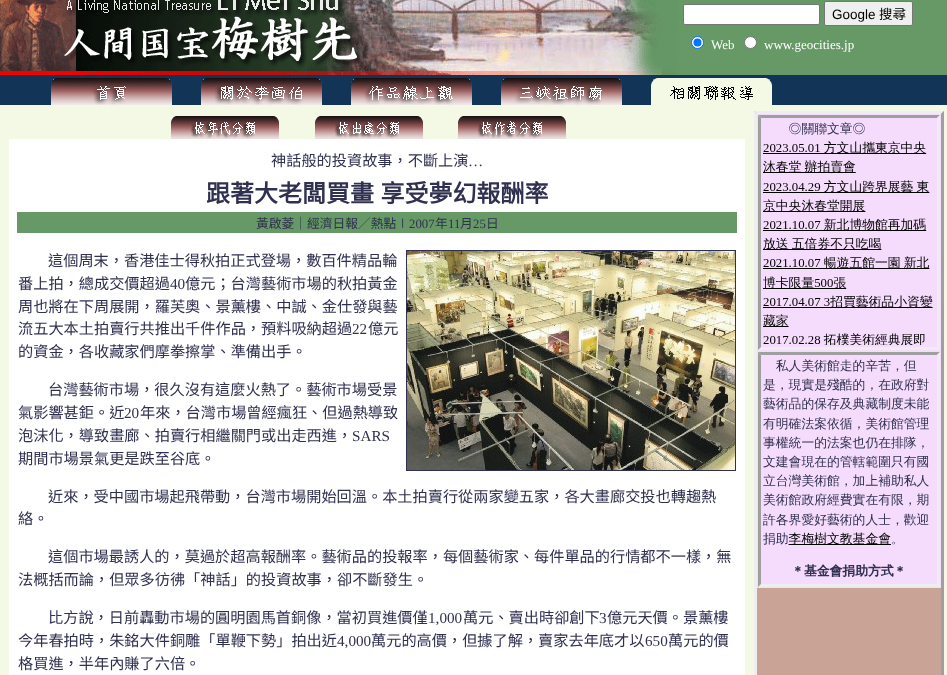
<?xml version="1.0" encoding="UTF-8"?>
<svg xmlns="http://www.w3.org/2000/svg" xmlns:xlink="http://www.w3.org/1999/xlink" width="947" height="675">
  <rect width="100%" height="100%" fill="#669966" />
  <image x="0" y="0" width="679" height="75" xlink:href="image1.png" />
  <rect x="683.5" y="4.5" width="136" height="20" rx="1.5" fill="#ffffff" stroke="#767676" />
  <rect x="824.5" y="1.5" width="88" height="24" rx="1.5" fill="#efefef" stroke="#767676" />
  <circle cx="697.5" cy="42.5" r="6" fill="#ffffff" stroke="#0075ff" />
  <circle cx="697.5" cy="42.5" r="4" fill="#0075ff" />
  <circle cx="750.5" cy="42.5" r="6" fill="#ffffff" stroke="#767676" />
  <rect y="75" width="947" height="30" fill="#123456" />
  <image x="51" y="78" width="121" height="27" xlink:href="image2.png" />
  <image x="201" y="78" width="121" height="27" xlink:href="image3.png" />
  <image x="351" y="78" width="121" height="27" xlink:href="image4.png" />
  <image x="501" y="78" width="121" height="27" xlink:href="image5.png" />
  <image x="651" y="78" width="121" height="27" xlink:href="image6.png" />
  <rect y="105" width="947" height="570" fill="#f4f9e6" />
  <image x="171" y="116" width="108" height="23" xlink:href="image7.png" />
  <image x="315" y="116" width="108" height="23" xlink:href="image8.png" />
  <image x="458" y="116" width="108" height="23" xlink:href="image9.png" />
  <rect x="9" y="139" width="736" height="536" fill="#ffffff" />
  <rect x="17" y="212" width="720" height="21" fill="#669966" />
  <rect x="406.5" y="250.5" width="329" height="220" fill="none" stroke="#303050" />
  <image x="407" y="251" width="328" height="219" xlink:href="image10.png" />
  <rect x="754" y="111" width="190" height="564" fill="#caa397" />
  <path d="M 754 111 h 190 l -3 3 h -184 z" fill="#eeeeee" />
  <path d="M 944 111 v 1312 l -3 -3 v -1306 z" fill="#9f9f9f" />
  <path d="M 754 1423 v -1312 l 3 3 v 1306 z" fill="#eeeeee" />
  <rect x="757" y="114" width="184" height="474" fill="#f5dcfc" />
  <path d="M 758 115 h 182 l -3 3 h -176 z" fill="#9f9f9f" />
  <path d="M 940 115 v 235 l -3 -3 v -229 z" fill="#eeeeee" />
  <path d="M 940 350 h -182 l 3 -3 h 176 z" fill="#eeeeee" />
  <path d="M 758 350 v -235 l 3 3 v 229 z" fill="#9f9f9f" />
  <image x="763" y="122" width="170" height="223" xlink:href="image11.png" />
  <path d="M 758 352 h 182 l -3 3 h -176 z" fill="#9f9f9f" />
  <path d="M 940 352 v 235 l -3 -3 v -229 z" fill="#eeeeee" />
  <path d="M 940 587 h -182 l 3 -3 h 176 z" fill="#eeeeee" />
  <path d="M 758 587 v -235 l 3 3 v 229 z" fill="#9f9f9f" />
  <image x="763" y="359" width="166" height="218" xlink:href="image12.png" />
  <text x="832" y="19" style="font-family: Liberation Sans; font-size: 13.5px; fill: #000000">Google</text>
  <text x="879" y="19" style="font-family: Noto Sans CJK TC; font-size: 13.5px; fill: #000000">搜尋</text>
  <text x="711" y="49" style="font-family: Liberation Serif; font-size: 13px; fill: #ffffff">Web</text>
  <text x="764" y="49" style="font-family: Liberation Serif; font-size: 13px; fill: #ffffff">www.geocities.jp</text>
  <text x="271" y="166" style="font-family: Noto Sans CJK TC; font-size: 15.2px; fill: #303050">神話般的投資故事，不斷上演</text>
  <text x="468" y="166" style="font-family: Liberation Serif; font-size: 15.2px; fill: #303050">…</text>
  <text x="206" y="202" word-spacing="1" style="font-family: Noto Sans CJK TC; font-size: 24px; font-weight: bold; fill: #303050">跟著大老闆買畫 享受夢幻報酬率</text>
  <text x="256" y="228" style="font-family: Noto Sans CJK TC; font-size: 12.75px; fill: #303050">黃啟菱｜經濟日報／熱點∣</text>
  <text x="409" y="228" style="font-family: Liberation Serif; font-size: 12.75px; fill: #303050">2007</text>
  <text x="435" y="228" style="font-family: Noto Sans CJK TC; font-size: 12.75px; fill: #303050">年</text>
  <text x="448" y="228" style="font-family: Liberation Serif; font-size: 12.75px; fill: #303050">11</text>
  <text x="460" y="228" style="font-family: Noto Sans CJK TC; font-size: 12.75px; fill: #303050">月</text>
  <text x="473" y="228" style="font-family: Liberation Serif; font-size: 12.75px; fill: #303050">25</text>
  <text x="486" y="228" style="font-family: Noto Sans CJK TC; font-size: 12.75px; fill: #303050">日</text>
  <text x="48" y="266" style="font-family: Noto Sans CJK TC; font-size: 15.2px; fill: #303050">這個周末，香港佳士得秋拍正式登場，數百件精品輪</text>
  <text x="18" y="289" style="font-family: Noto Sans CJK TC; font-size: 15.2px; fill: #303050">番上拍，總成交價超過</text>
  <text x="170" y="289" style="font-family: Liberation Serif; font-size: 15.2px; fill: #303050">40</text>
  <text x="185" y="289" style="font-family: Noto Sans CJK TC; font-size: 15.2px; fill: #303050">億元；台灣藝術市場的秋拍黃金</text>
  <text x="18" y="312" style="font-family: Noto Sans CJK TC; font-size: 15.2px; fill: #303050">周也將在下周展開，羅芙奧、景薰樓、中誠、金仕發與藝</text>
  <text x="18" y="334" style="font-family: Noto Sans CJK TC; font-size: 15.2px; fill: #303050">流五大本土拍賣行共推出千件作品，預料吸納超過</text>
  <text x="352" y="334" style="font-family: Liberation Serif; font-size: 15.2px; fill: #303050">22</text>
  <text x="368" y="334" style="font-family: Noto Sans CJK TC; font-size: 15.2px; fill: #303050">億元</text>
  <text x="18" y="357" style="font-family: Noto Sans CJK TC; font-size: 15.2px; fill: #303050">的資金，各收藏家們摩拳擦掌、準備出手。</text>
  <text x="48" y="395" style="font-family: Noto Sans CJK TC; font-size: 15.2px; fill: #303050">台灣藝術市場，很久沒有這麼火熱了。藝術市場受景</text>
  <text x="18" y="418" style="font-family: Noto Sans CJK TC; font-size: 15.2px; fill: #303050">氣影響甚鉅。近</text>
  <text x="124" y="418" style="font-family: Liberation Serif; font-size: 15.2px; fill: #303050">20</text>
  <text x="140" y="418" style="font-family: Noto Sans CJK TC; font-size: 15.2px; fill: #303050">年來，台灣市場曾經瘋狂、但過熱導致</text>
  <text x="18" y="441" style="font-family: Noto Sans CJK TC; font-size: 15.2px; fill: #303050">泡沫化，導致畫廊、拍賣行相繼關門或出走西進，</text>
  <text x="352" y="441" style="font-family: Liberation Serif; font-size: 15.2px; fill: #303050">SARS</text>
  <text x="18" y="464" style="font-family: Noto Sans CJK TC; font-size: 15.2px; fill: #303050">期間市場景氣更是跌至谷底。</text>
  <text x="48" y="502" style="font-family: Noto Sans CJK TC; font-size: 15.2px; fill: #303050">近來，受中國市場起飛帶動，台灣市場開始回溫。本土拍賣行從兩家變五家，各大畫廊交投也轉趨熱</text>
  <text x="18" y="524" style="font-family: Noto Sans CJK TC; font-size: 15.2px; fill: #303050">絡。</text>
  <text x="48" y="562" style="font-family: Noto Sans CJK TC; font-size: 15.2px; fill: #303050">這個市場最誘人的，莫過於超高報酬率。藝術品的投報率，每個藝術家、每件單品的行情都不一樣，無</text>
  <text x="18" y="585" style="font-family: Noto Sans CJK TC; font-size: 15.2px; fill: #303050">法概括而論，但眾多彷彿「神話」的投資故事，卻不斷發生。</text>
  <text x="48" y="623" style="font-family: Noto Sans CJK TC; font-size: 15.2px; fill: #303050">比方說，日前轟動市場的圓明園馬首銅像，當初買進價僅</text>
  <text x="428" y="623" style="font-family: Liberation Serif; font-size: 15.2px; fill: #303050">1,000</text>
  <text x="463" y="623" style="font-family: Noto Sans CJK TC; font-size: 15.2px; fill: #303050">萬元、賣出時卻創下</text>
  <text x="599" y="623" style="font-family: Liberation Serif; font-size: 15.2px; fill: #303050">3</text>
  <text x="607" y="623" style="font-family: Noto Sans CJK TC; font-size: 15.2px; fill: #303050">億元天價。景薰樓</text>
  <text x="18" y="646" style="font-family: Noto Sans CJK TC; font-size: 15.2px; fill: #303050">今年春拍時，朱銘大件銅雕「單鞭下勢」拍出近</text>
  <text x="337" y="646" style="font-family: Liberation Serif; font-size: 15.2px; fill: #303050">4,000</text>
  <text x="371" y="646" style="font-family: Noto Sans CJK TC; font-size: 15.2px; fill: #303050">萬元的高價，但據了解，賣家去年底才以</text>
  <text x="645" y="646" style="font-family: Liberation Serif; font-size: 15.2px; fill: #303050">650</text>
  <text x="668" y="646" style="font-family: Noto Sans CJK TC; font-size: 15.2px; fill: #303050">萬元的價</text>
  <text x="18" y="669" style="font-family: Noto Sans CJK TC; font-size: 15.2px; fill: #303050">格買進，半年內賺了六倍。</text>
</svg>
